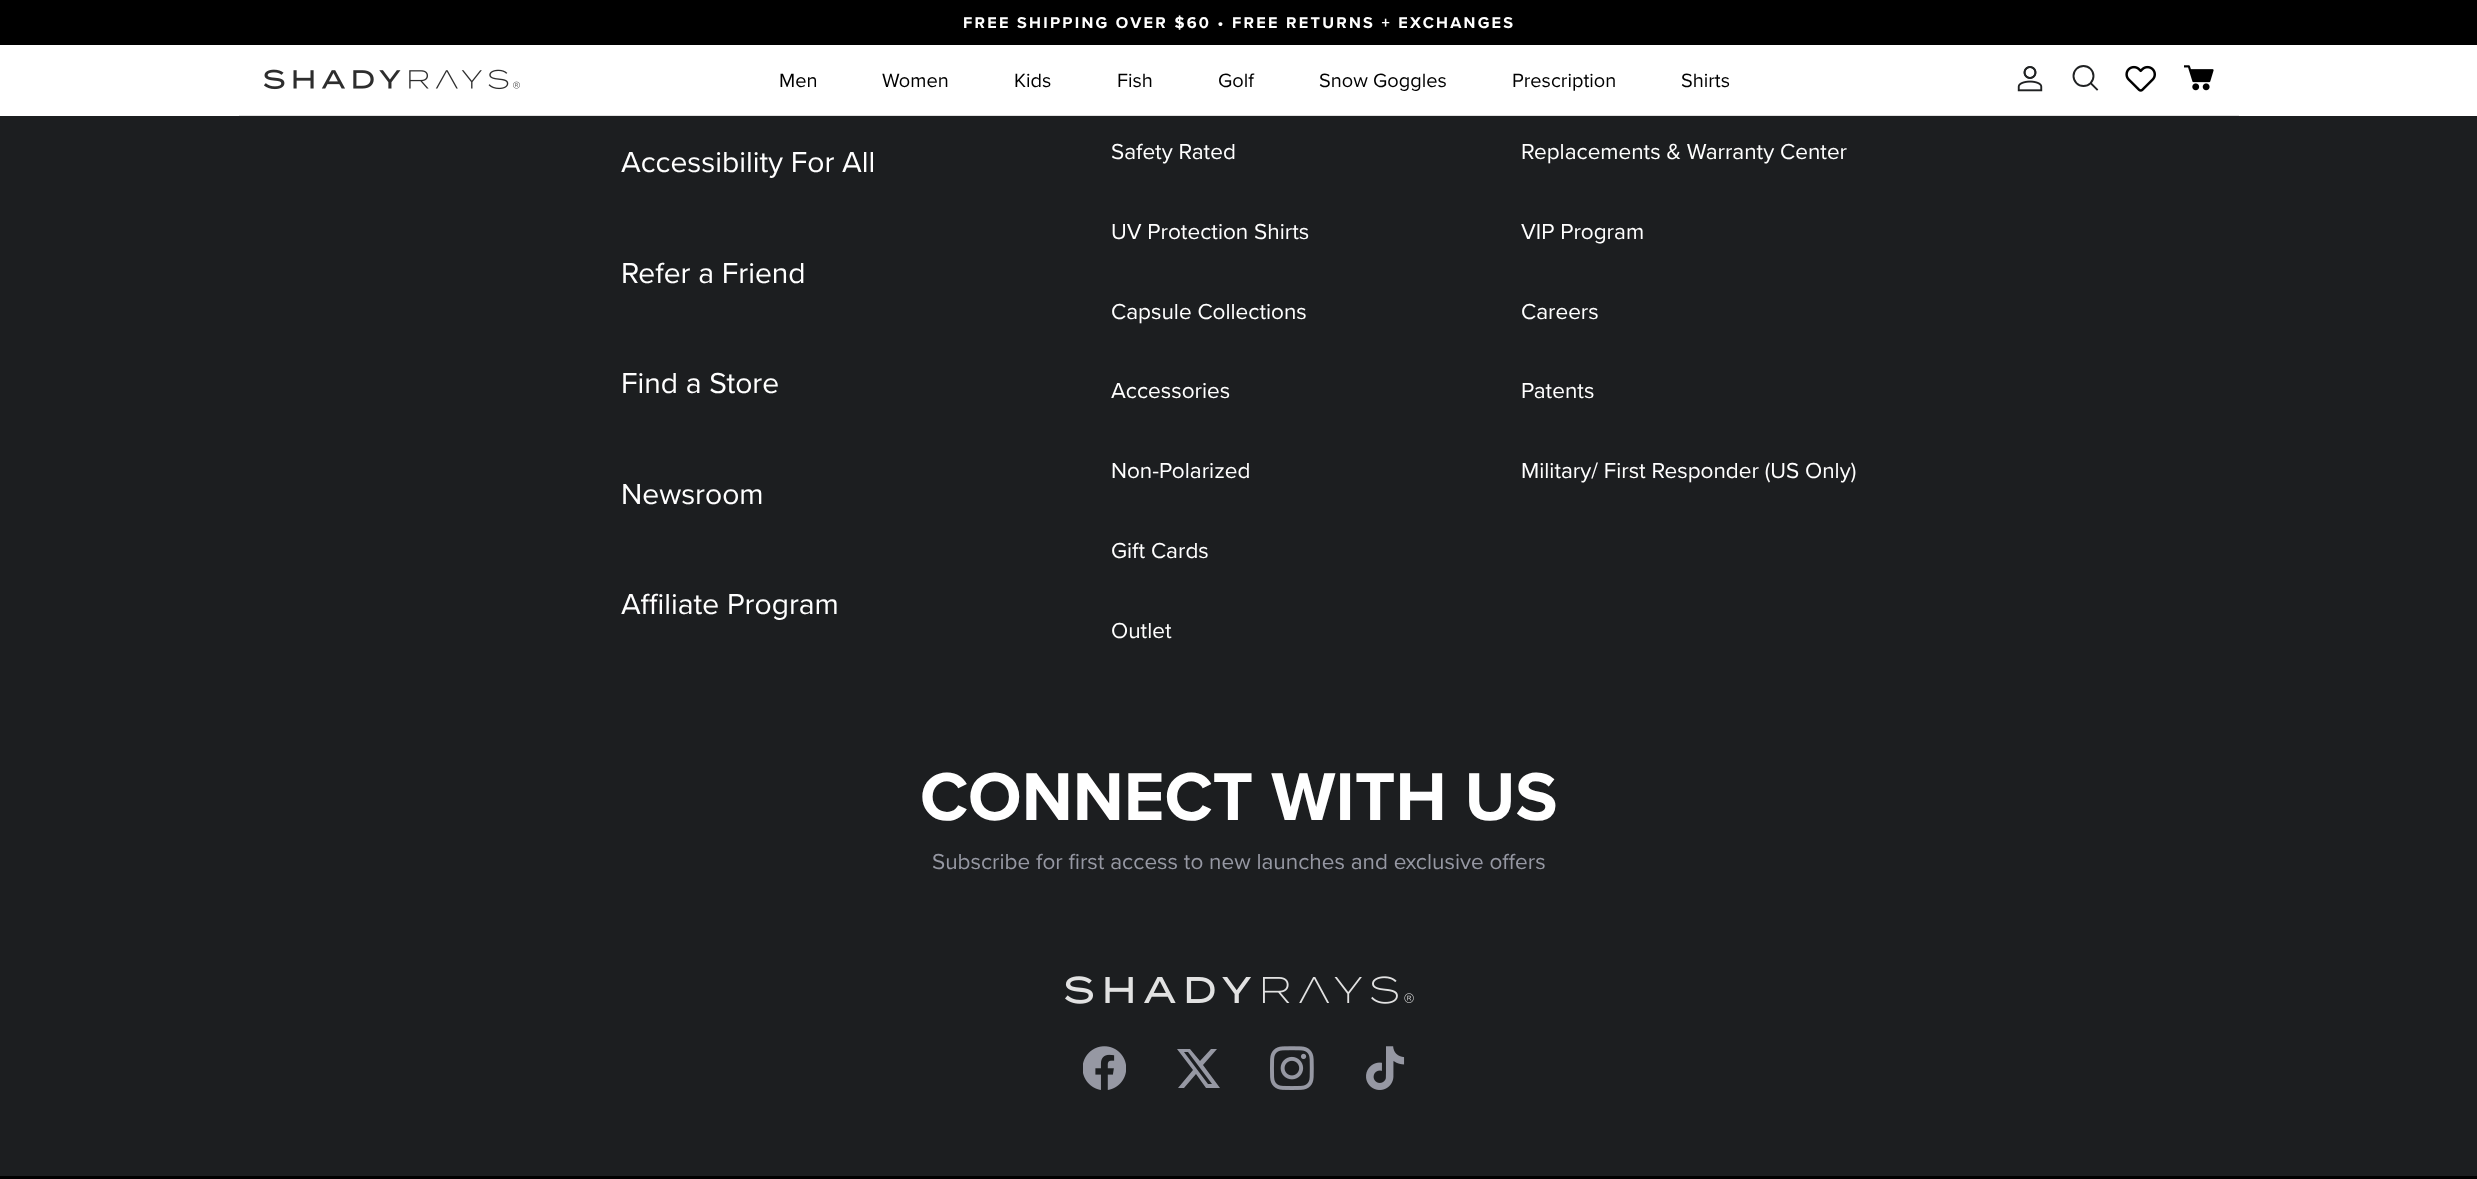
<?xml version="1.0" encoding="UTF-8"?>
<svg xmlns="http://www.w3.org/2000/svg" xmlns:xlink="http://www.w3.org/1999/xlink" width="2477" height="1179">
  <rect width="100%" height="100%" fill="#1c1e20" />
  <rect width="2477" height="45" fill="#000000" />
  <rect y="45" width="2477" height="71" fill="#ffffff" />
  <rect x="239" y="115" width="2000" height="1" fill="#e2e2e2" />
  <image x="264" y="69" width="256" height="21" xlink:href="image1.png" />
  <image x="2017" y="66" width="26" height="26" xlink:href="image2.png" />
  <circle cx="2083.5" cy="76" r="10" fill="none" stroke="#202223" stroke-width="1.9" />
  <path d="M 2091 83.5 l 6 6" fill="none" stroke="#202223" stroke-width="1.9" stroke-linecap="square" />
  <image x="2125" y="65" width="31" height="27" xlink:href="image3.png" />
  <image x="2184" y="65" width="30" height="26" xlink:href="image4.png" />
  <image x="1065" y="976" width="349" height="28" xlink:href="image5.png" />
  <image x="1083" y="1046" width="43" height="44" xlink:href="image6.png" />
  <path d="M 1211 1049 h 6 l -14 16 l 17 23 h -14 l -10 -14 l -12 14 h -6 l 15 -18 l -16 -21 h 13 l 10 12 z m -3 35 h 4 l -24 -32 h -4 z" fill="#9698a3" />
  <image x="1270" y="1046" width="44" height="44" xlink:href="image7.png" />
  <image x="1366" y="1046" width="39" height="44" xlink:href="image8.png" />
  <rect y="1176" width="2477" height="3" fill="#000000" />
  <text x="963" y="28" style="font-family: Proxima Nova; font-size: 16.25px; font-weight: bold; letter-spacing: 2.25px; fill: #ffffff">FREE SHIPPING OVER $60 • FREE RETURNS + EXCHANGES</text>
  <text x="779" y="87" style="font-family: Proxima Nova; font-size: 20px; fill: #000000">Men</text>
  <text x="882" y="87" style="font-family: Proxima Nova; font-size: 20px; fill: #000000">Women</text>
  <text x="1014" y="87" style="font-family: Proxima Nova; font-size: 20px; fill: #000000">Kids</text>
  <text x="1117" y="87" style="font-family: Proxima Nova; font-size: 20px; fill: #000000">Fish</text>
  <text x="1218" y="87" style="font-family: Proxima Nova; font-size: 20px; fill: #000000">Golf</text>
  <text x="1319" y="87" style="font-family: Proxima Nova; font-size: 20px; fill: #000000">Snow Goggles</text>
  <text x="1512" y="87" style="font-family: Proxima Nova; font-size: 20px; fill: #000000">Prescription</text>
  <text x="1681" y="87" style="font-family: Proxima Nova; font-size: 20px; fill: #000000">Shirts</text>
  <text x="621" y="172" style="font-family: Proxima Nova; font-size: 30px; fill: #ffffff">Accessibility For All</text>
  <text x="621" y="283" style="font-family: Proxima Nova; font-size: 30px; fill: #ffffff">Refer a Friend</text>
  <text x="621" y="393" style="font-family: Proxima Nova; font-size: 30px; fill: #ffffff">Find a Store</text>
  <text x="621" y="504" style="font-family: Proxima Nova; font-size: 30px; fill: #ffffff">Newsroom</text>
  <text x="621" y="614" style="font-family: Proxima Nova; font-size: 30px; fill: #ffffff">Affiliate Program</text>
  <text x="1111" y="159" style="font-family: Proxima Nova; font-size: 22.5px; fill: #ffffff">Safety Rated</text>
  <text x="1111" y="239" style="font-family: Proxima Nova; font-size: 22.5px; fill: #ffffff">UV Protection Shirts</text>
  <text x="1111" y="319" style="font-family: Proxima Nova; font-size: 22.5px; fill: #ffffff">Capsule Collections</text>
  <text x="1111" y="398" style="font-family: Proxima Nova; font-size: 22.5px; fill: #ffffff">Accessories</text>
  <text x="1111" y="478" style="font-family: Proxima Nova; font-size: 22.5px; fill: #ffffff">Non-Polarized</text>
  <text x="1111" y="558" style="font-family: Proxima Nova; font-size: 22.5px; fill: #ffffff">Gift Cards</text>
  <text x="1111" y="638" style="font-family: Proxima Nova; font-size: 22.5px; fill: #ffffff">Outlet</text>
  <text x="1521" y="159" style="font-family: Proxima Nova; font-size: 22.5px; fill: #ffffff">Replacements &amp; Warranty Center</text>
  <text x="1521" y="239" style="font-family: Proxima Nova; font-size: 22.5px; fill: #ffffff">VIP Program</text>
  <text x="1521" y="319" style="font-family: Proxima Nova; font-size: 22.5px; fill: #ffffff">Careers</text>
  <text x="1521" y="398" style="font-family: Proxima Nova; font-size: 22.5px; fill: #ffffff">Patents</text>
  <text x="1521" y="478" style="font-family: Proxima Nova; font-size: 22.5px; fill: #ffffff">Military/ First Responder (US Only)</text>
  <text x="920" y="820" style="font-family: Proxima Nova; font-size: 70px; font-weight: bold; fill: #ffffff">CONNECT WITH US</text>
  <text x="932" y="869" style="font-family: Proxima Nova; font-size: 22.5px; fill: #9698a3">Subscribe for first access to new launches and exclusive offers</text>
</svg>
